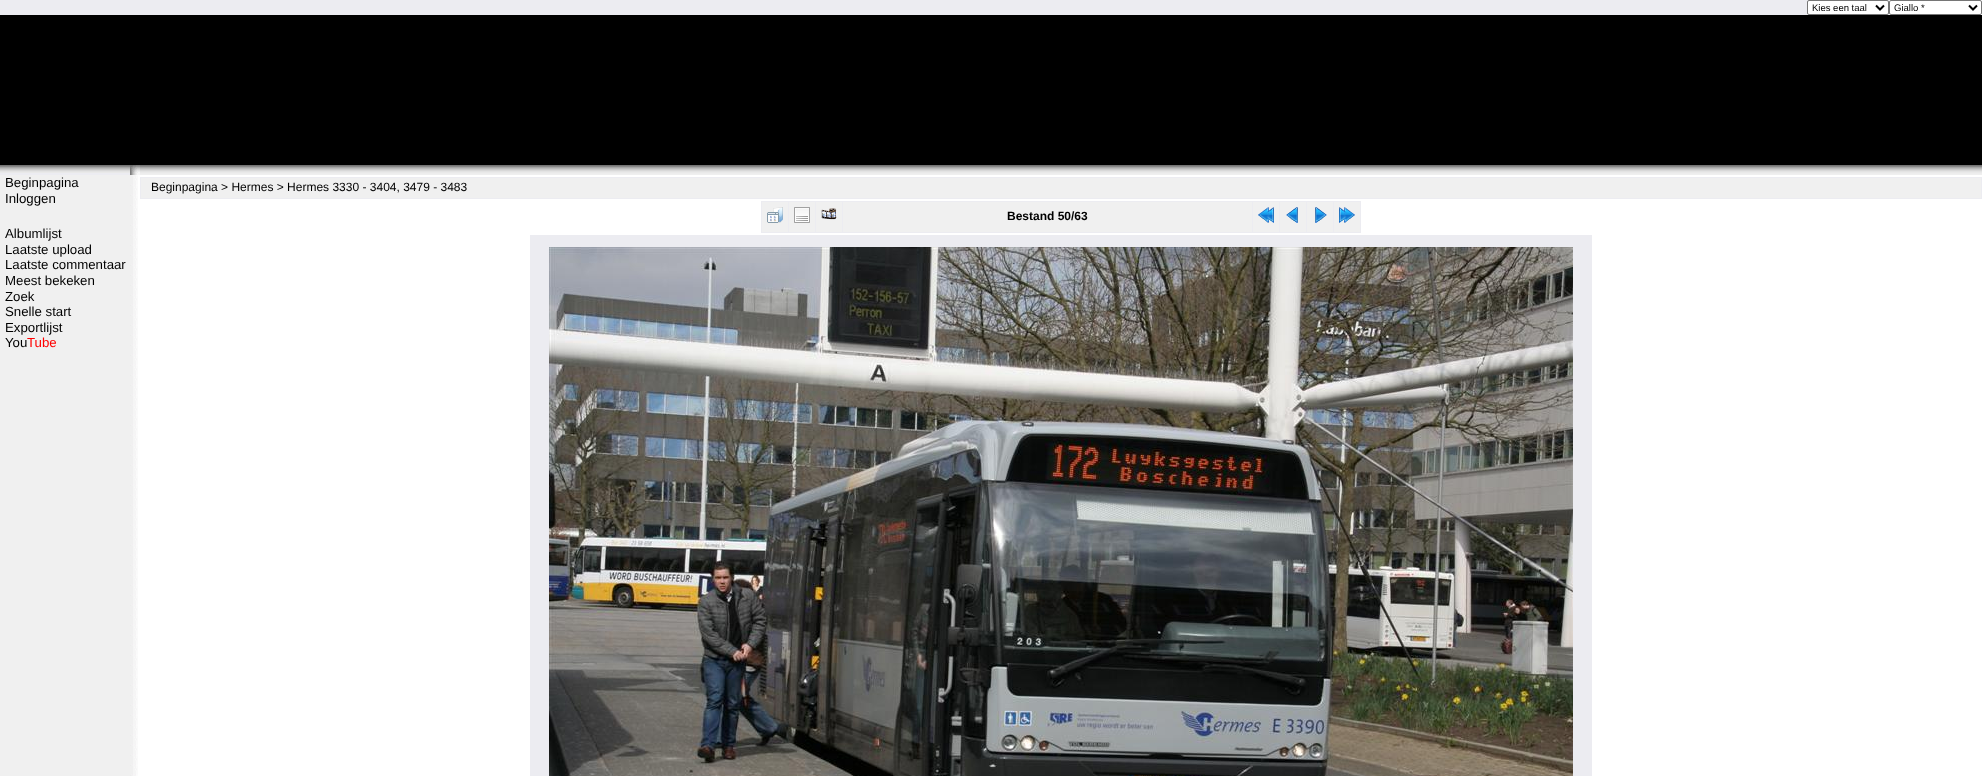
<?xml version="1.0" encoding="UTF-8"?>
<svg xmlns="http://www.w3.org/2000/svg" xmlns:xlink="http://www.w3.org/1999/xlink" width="1982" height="776">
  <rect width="100%" height="100%" fill="#ececf1" />
  <rect x="1807.5" y="0.5" width="81" height="14" rx="1.5" fill="#ffffff" stroke="#767676" />
  <path d="M 1876 5.5 l 4 4 l 4 -4" fill="none" stroke="#000000" stroke-width="2" />
  <rect x="1889" width="93" height="15" fill="#ffffff" />
  <rect x="1889.5" y="0.5" width="92" height="14" rx="1.5" fill="none" stroke="#767676" />
  <path d="M 1969 5.5 l 4 4 l 4 -4" fill="none" stroke="#000000" stroke-width="2" />
  <rect y="15" width="1982" height="150" fill="#000000" />
  <image x="0" y="165" width="130" height="8" xlink:href="image1.png" />
  <image x="130" y="165" width="10" height="10" xlink:href="image2.png" />
  <image x="140" y="165" width="1842" height="10" xlink:href="image3.png" />
  <rect y="175" width="130" height="601" fill="#f0f0f0" />
  <image x="130" y="175" width="10" height="601" xlink:href="image4.png" />
  <rect x="140" y="175" width="1842" height="601" fill="#ffffff" />
  <rect x="140" y="177" width="1842" height="22" fill="#ececf1" />
  <rect x="141" y="178" width="1840" height="20" fill="#f0f0f0" />
  <rect x="761" y="201" width="600" height="32" fill="#ececf1" />
  <rect x="762" y="202" width="26" height="30" fill="#f0f0f0" />
  <image x="767" y="207" width="16" height="16" xlink:href="image5.png" />
  <rect x="789" y="202" width="26" height="30" fill="#f0f0f0" />
  <image x="794" y="207" width="16" height="16" xlink:href="image6.png" />
  <rect x="816" y="202" width="26" height="30" fill="#f0f0f0" />
  <image x="821" y="208" width="16" height="12" xlink:href="image7.png" />
  <rect x="843" y="202" width="409" height="30" fill="#f0f0f0" />
  <rect x="1253" y="202" width="26" height="30" fill="#f0f0f0" />
  <image x="1258" y="207" width="16" height="16" xlink:href="image8.png" />
  <rect x="1280" y="202" width="26" height="30" fill="#f0f0f0" />
  <image x="1286" y="207" width="12" height="16" xlink:href="image9.png" />
  <rect x="1307" y="202" width="26" height="30" fill="#f0f0f0" />
  <image x="1315" y="207" width="12" height="16" xlink:href="image10.png" />
  <rect x="1334" y="202" width="26" height="30" fill="#f0f0f0" />
  <image x="1339" y="207" width="16" height="16" xlink:href="image11.png" />
  <rect x="530" y="235" width="1062" height="541" fill="#ececf1" />
  <image x="549" y="247" width="1024" height="529" xlink:href="image12.png" />
  <text x="1812" y="11" style="font-family: Liberation Sans; font-size: 9.5px; fill: #000000">Kies een taal</text>
  <text x="1894" y="11" style="font-family: Liberation Sans; font-size: 9.5px; fill: #000000">Giallo *</text>
  <text x="5" y="187" style="font-family: Liberation Sans; font-size: 13.25px; fill: #000000">Beginpagina</text>
  <text x="5" y="203" style="font-family: Liberation Sans; font-size: 13.25px; fill: #000000">Inloggen</text>
  <text x="5" y="238" style="font-family: Liberation Sans; font-size: 13.25px; fill: #000000">Albumlijst</text>
  <text x="5" y="254" style="font-family: Liberation Sans; font-size: 13.25px; fill: #000000">Laatste upload</text>
  <text x="5" y="269" style="font-family: Liberation Sans; font-size: 13.25px; fill: #000000">Laatste commentaar</text>
  <text x="5" y="285" style="font-family: Liberation Sans; font-size: 13.25px; fill: #000000">Meest bekeken</text>
  <text x="5" y="301" style="font-family: Liberation Sans; font-size: 13.25px; fill: #000000">Zoek</text>
  <text x="5" y="316" style="font-family: Liberation Sans; font-size: 13.25px; fill: #000000">Snelle start</text>
  <text x="5" y="332" style="font-family: Liberation Sans; font-size: 13.25px; fill: #000000">Exportlijst</text>
  <text x="5" y="347" style="font-family: Liberation Sans; font-size: 13.25px; fill: #000000">You</text>
  <text x="27" y="347" style="font-family: Liberation Sans; font-size: 13.25px; fill: #ff0000">Tube</text>
  <text x="151" y="191" style="font-family: Liberation Sans; font-size: 12px; fill: #000000">Beginpagina &gt; Hermes &gt; Hermes 3330 - 3404, 3479 - 3483</text>
  <text x="1007" y="220" style="font-family: Liberation Sans; font-size: 12px; font-weight: bold; fill: #000000">Bestand 50/63</text>
</svg>
